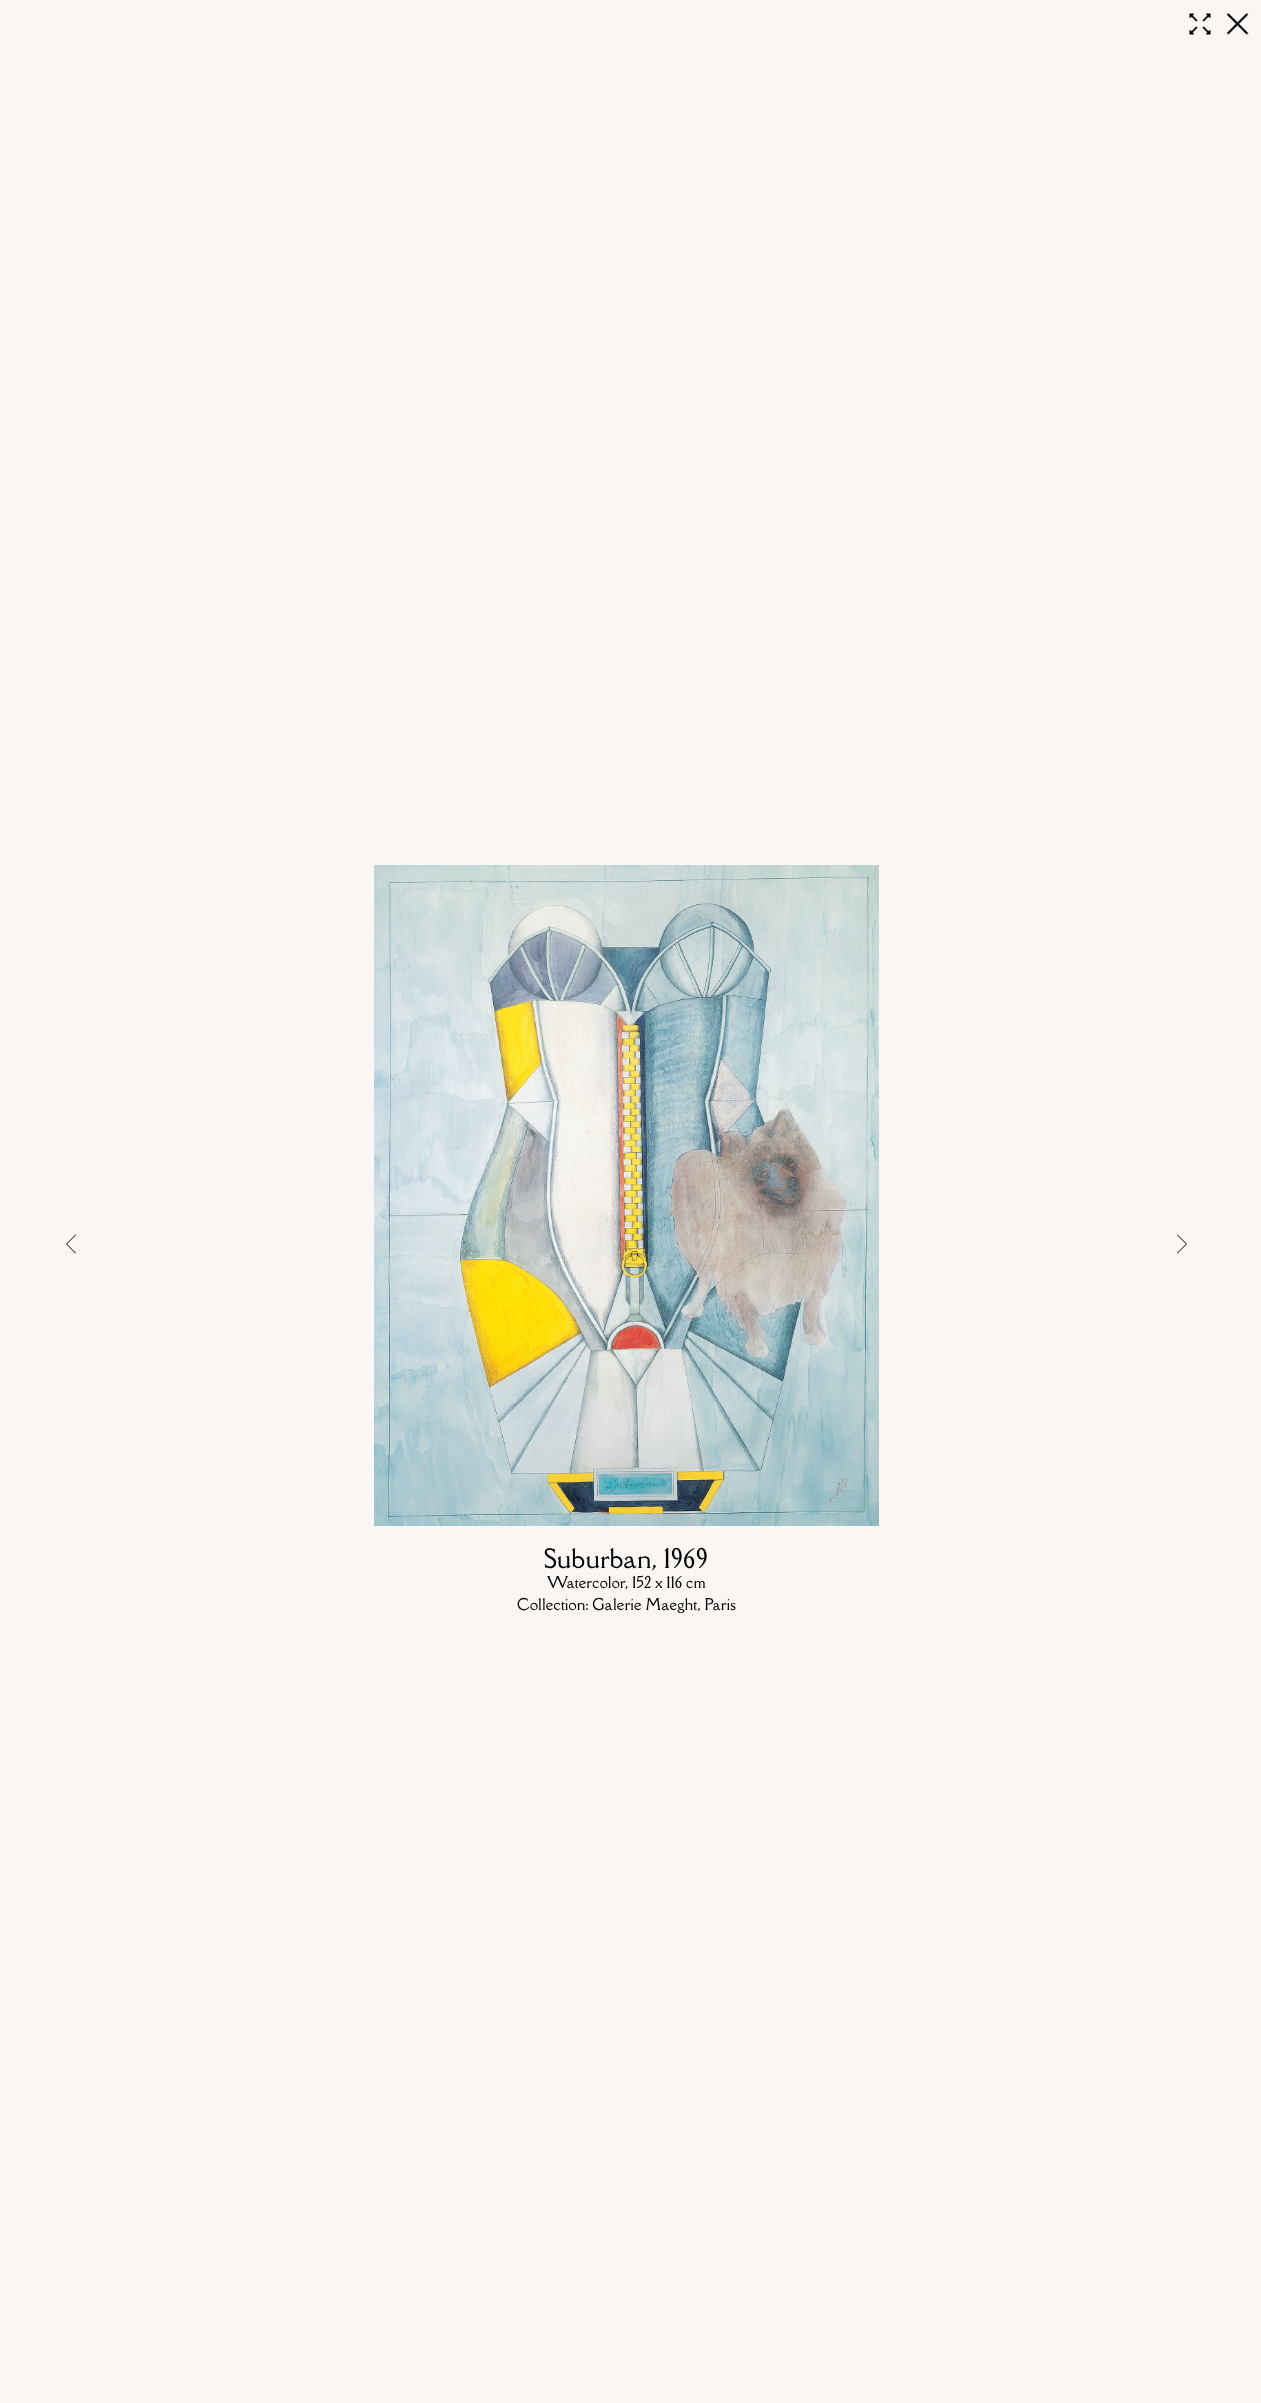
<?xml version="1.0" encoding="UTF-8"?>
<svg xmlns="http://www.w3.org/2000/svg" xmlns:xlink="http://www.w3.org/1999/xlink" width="1261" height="2403">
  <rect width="100%" height="100%" fill="#f9f6f3" />
  <image x="1189" y="13" width="22" height="22" xlink:href="image1.png" />
  <image x="1226" y="13" width="23" height="22" xlink:href="image2.png" />
  <path d="M 76 1253 l -9 -9 l 9 -9 l -0.5 -0.5 l -9.5 9.5 l 9.5 9.5 z" fill="#000000" />
  <path d="M 1177.5 1253.5 l 9.5 -9.5 l -9.5 -9.5 l -0.5 0.5 l 9 9 l -9 9 z" fill="#000000" />
  <image x="374" y="865" width="505" height="661" xlink:href="image3.png" />
  <text x="544" y="1568" style="font-family: Della Respira; font-size: 25px; fill: #000000">Suburban, 1969</text>
  <text x="547" y="1588" style="font-family: Della Respira; font-size: 15px; fill: #000000">Watercolor, 152 x 116 cm</text>
  <text x="517" y="1610" style="font-family: Della Respira; font-size: 15px; fill: #000000">Collection: Galerie Maeght, Paris</text>
</svg>
